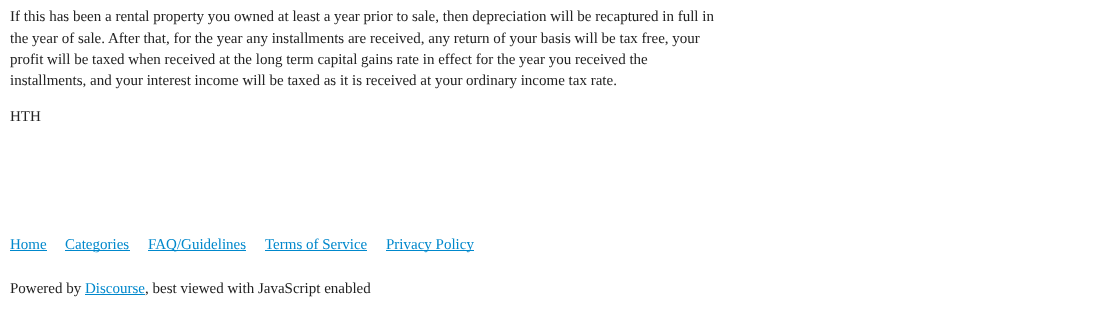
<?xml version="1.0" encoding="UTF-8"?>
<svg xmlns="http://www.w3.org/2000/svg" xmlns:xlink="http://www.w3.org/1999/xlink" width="1110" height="314">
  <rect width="100%" height="100%" fill="#ffffff" />
  <rect x="10" y="250" width="37" height="1" fill="#0088cc" />
  <rect x="65" y="250" width="65" height="1" fill="#0088cc" />
  <rect x="148" y="250" width="98" height="1" fill="#0088cc" />
  <rect x="265" y="250" width="102" height="1" fill="#0088cc" />
  <rect x="386" y="250" width="88" height="1" fill="#0088cc" />
  <rect x="85" y="294" width="60" height="1" fill="#0088cc" />
  <text x="10" y="21" style="font-family: Liberation Serif; font-size: 15px; fill: #222222">If this has been a rental property you owned at least a year prior to sale, then depreciation will be recaptured in full in</text>
  <text x="10" y="43" style="font-family: Liberation Serif; font-size: 15px; fill: #222222">the year of sale.</text>
  <text x="108" y="43" style="font-family: Liberation Serif; font-size: 15px; fill: #222222">After that, for the year any installments are received, any return of your basis will be tax free, your</text>
  <text x="10" y="64" style="font-family: Liberation Serif; font-size: 15px; fill: #222222">profit will be taxed when received at the long term capital gains rate in effect for the year you received the</text>
  <text x="10" y="85" style="font-family: Liberation Serif; font-size: 15px; fill: #222222">installments, and your interest income will be taxed as it is received at your ordinary income tax rate.</text>
  <text x="10" y="121" style="font-family: Liberation Serif; font-size: 15px; fill: #222222">HTH</text>
  <text x="10" y="249" style="font-family: Liberation Serif; font-size: 15px; fill: #0088cc">Home</text>
  <text x="65" y="249" style="font-family: Liberation Serif; font-size: 15px; fill: #0088cc">Categories</text>
  <text x="148" y="249" style="font-family: Liberation Serif; font-size: 15px; fill: #0088cc">FAQ/Guidelines</text>
  <text x="265" y="249" style="font-family: Liberation Serif; font-size: 15px; fill: #0088cc">Terms of Service</text>
  <text x="386" y="249" style="font-family: Liberation Serif; font-size: 15px; fill: #0088cc">Privacy Policy</text>
  <text x="10" y="293" style="font-family: Liberation Serif; font-size: 15px; fill: #222222">Powered by</text>
  <text x="85" y="293" style="font-family: Liberation Serif; font-size: 15px; fill: #0088cc">Discourse</text>
  <text x="145" y="293" style="font-family: Liberation Serif; font-size: 15px; fill: #222222">, best viewed with JavaScript enabled</text>
</svg>
